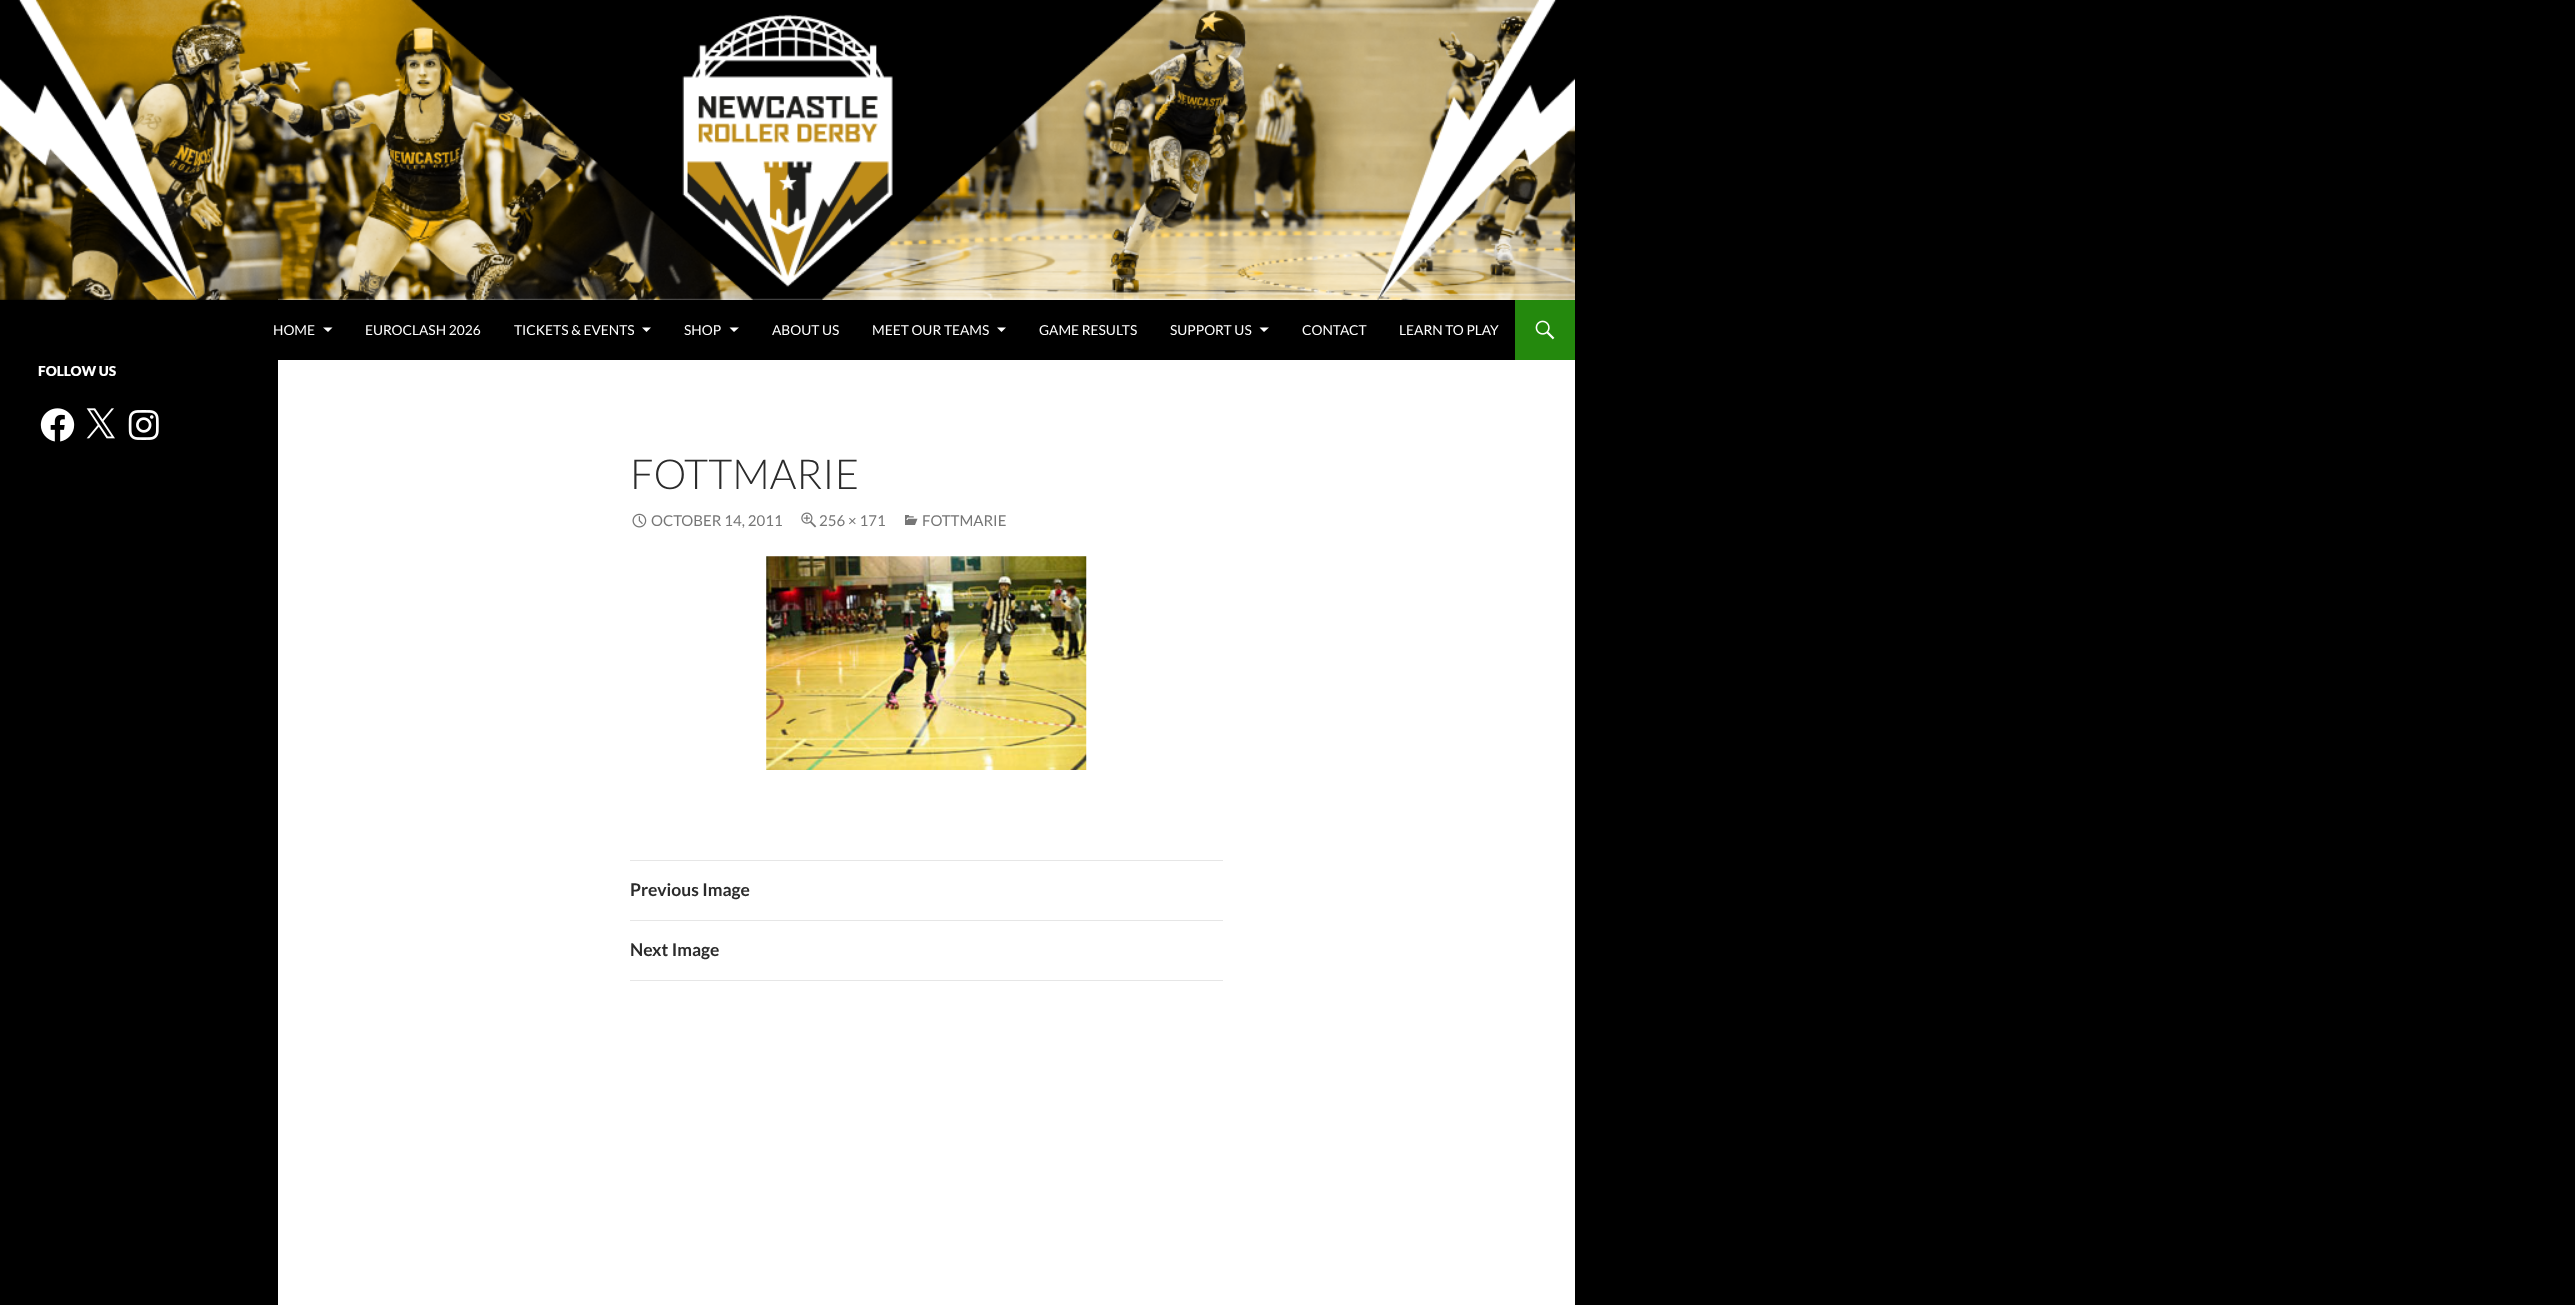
<?xml version="1.0" encoding="UTF-8"?>
<svg xmlns="http://www.w3.org/2000/svg" xmlns:xlink="http://www.w3.org/1999/xlink" width="2575" height="1305">
  <rect width="100%" height="100%" fill="#000000" />
  <rect x="278" y="298" width="1297" height="1007" fill="#ffffff" />
  <image x="0" y="0" width="1575" height="300" xlink:href="image1.png" />
  <rect x="278" y="300" width="1237" height="60" fill="#000000" />
  <path d="M 323 327.5 h 9.5 l -4.5 4.5 z" fill="#ffffff" />
  <path d="M 642 327.5 h 9 l -4.5 4.5 z" fill="#ffffff" />
  <path d="M 729.5 327.5 h 9.5 l -5 4.5 z" fill="#ffffff" />
  <path d="M 997 327.5 h 9 l -4.5 4.5 z" fill="#ffffff" />
  <path d="M 1259.5 327.5 h 9.5 l -5 4.5 z" fill="#ffffff" />
  <rect x="1515" y="300" width="60" height="60" fill="#24890d" />
  <image x="1535" y="320" width="20" height="20" xlink:href="image2.png" />
  <image x="40" y="408" width="35" height="34" xlink:href="image3.png" />
  <image x="86" y="408" width="29" height="31" xlink:href="image4.png" />
  <image x="128" y="410" width="31" height="30" xlink:href="image5.png" />
  <image x="632" y="513" width="15" height="15" xlink:href="image6.png" />
  <image x="801" y="512" width="16" height="16" xlink:href="image7.png" />
  <image x="905" y="515" width="13" height="10" xlink:href="image8.png" />
  <image x="766" y="556" width="321" height="214" xlink:href="image9.png" />
  <rect x="630" y="860" width="593" height="1" fill="#e6e6e6" />
  <rect x="630" y="920" width="593" height="1" fill="#e6e6e6" />
  <rect x="630" y="980" width="593" height="1" fill="#e6e6e6" />
  <text x="273" y="335" style="font-family: Lato; font-size: 13.75px; fill: #ffffff">HOME</text>
  <text x="365" y="335" style="font-family: Lato; font-size: 13.75px; fill: #ffffff">EUROCLASH 2026</text>
  <text x="514" y="335" style="font-family: Lato; font-size: 13.75px; fill: #ffffff">TICKETS &amp; EVENTS</text>
  <text x="684" y="335" style="font-family: Lato; font-size: 13.75px; fill: #ffffff">SHOP</text>
  <text x="772" y="335" style="font-family: Lato; font-size: 13.75px; fill: #ffffff">ABOUT US</text>
  <text x="872" y="335" style="font-family: Lato; font-size: 13.75px; fill: #ffffff">MEET OUR TEAMS</text>
  <text x="1039" y="335" style="font-family: Lato; font-size: 13.75px; fill: #ffffff">GAME RESULTS</text>
  <text x="1170" y="335" style="font-family: Lato; font-size: 13.75px; fill: #ffffff">SUPPORT US</text>
  <text x="1302" y="335" style="font-family: Lato; font-size: 13.75px; fill: #ffffff">CONTACT</text>
  <text x="1399" y="335" style="font-family: Lato; font-size: 13.75px; fill: #ffffff">LEARN TO PLAY</text>
  <text x="38" y="376" style="font-family: Lato; font-size: 13.75px; font-weight: 900; fill: #ffffff">FOLLOW US</text>
  <text x="630" y="489" style="font-family: Lato; font-size: 41.25px; font-weight: 300; fill: #2b2b2b">FOTTMARIE</text>
  <text x="651" y="526" style="font-family: Lato; font-size: 15px; fill: #767676">OCTOBER 14, 2011</text>
  <text x="819" y="526" style="font-family: Lato; font-size: 15px; fill: #767676">256 × 171</text>
  <text x="922" y="526" style="font-family: Lato; font-size: 15px; fill: #767676">FOTTMARIE</text>
  <text x="630" y="896" style="font-family: Lato; font-size: 17.5px; font-weight: bold; fill: #2b2b2b">Previous Image</text>
  <text x="630" y="956" style="font-family: Lato; font-size: 17.5px; font-weight: bold; fill: #2b2b2b">Next Image</text>
</svg>
